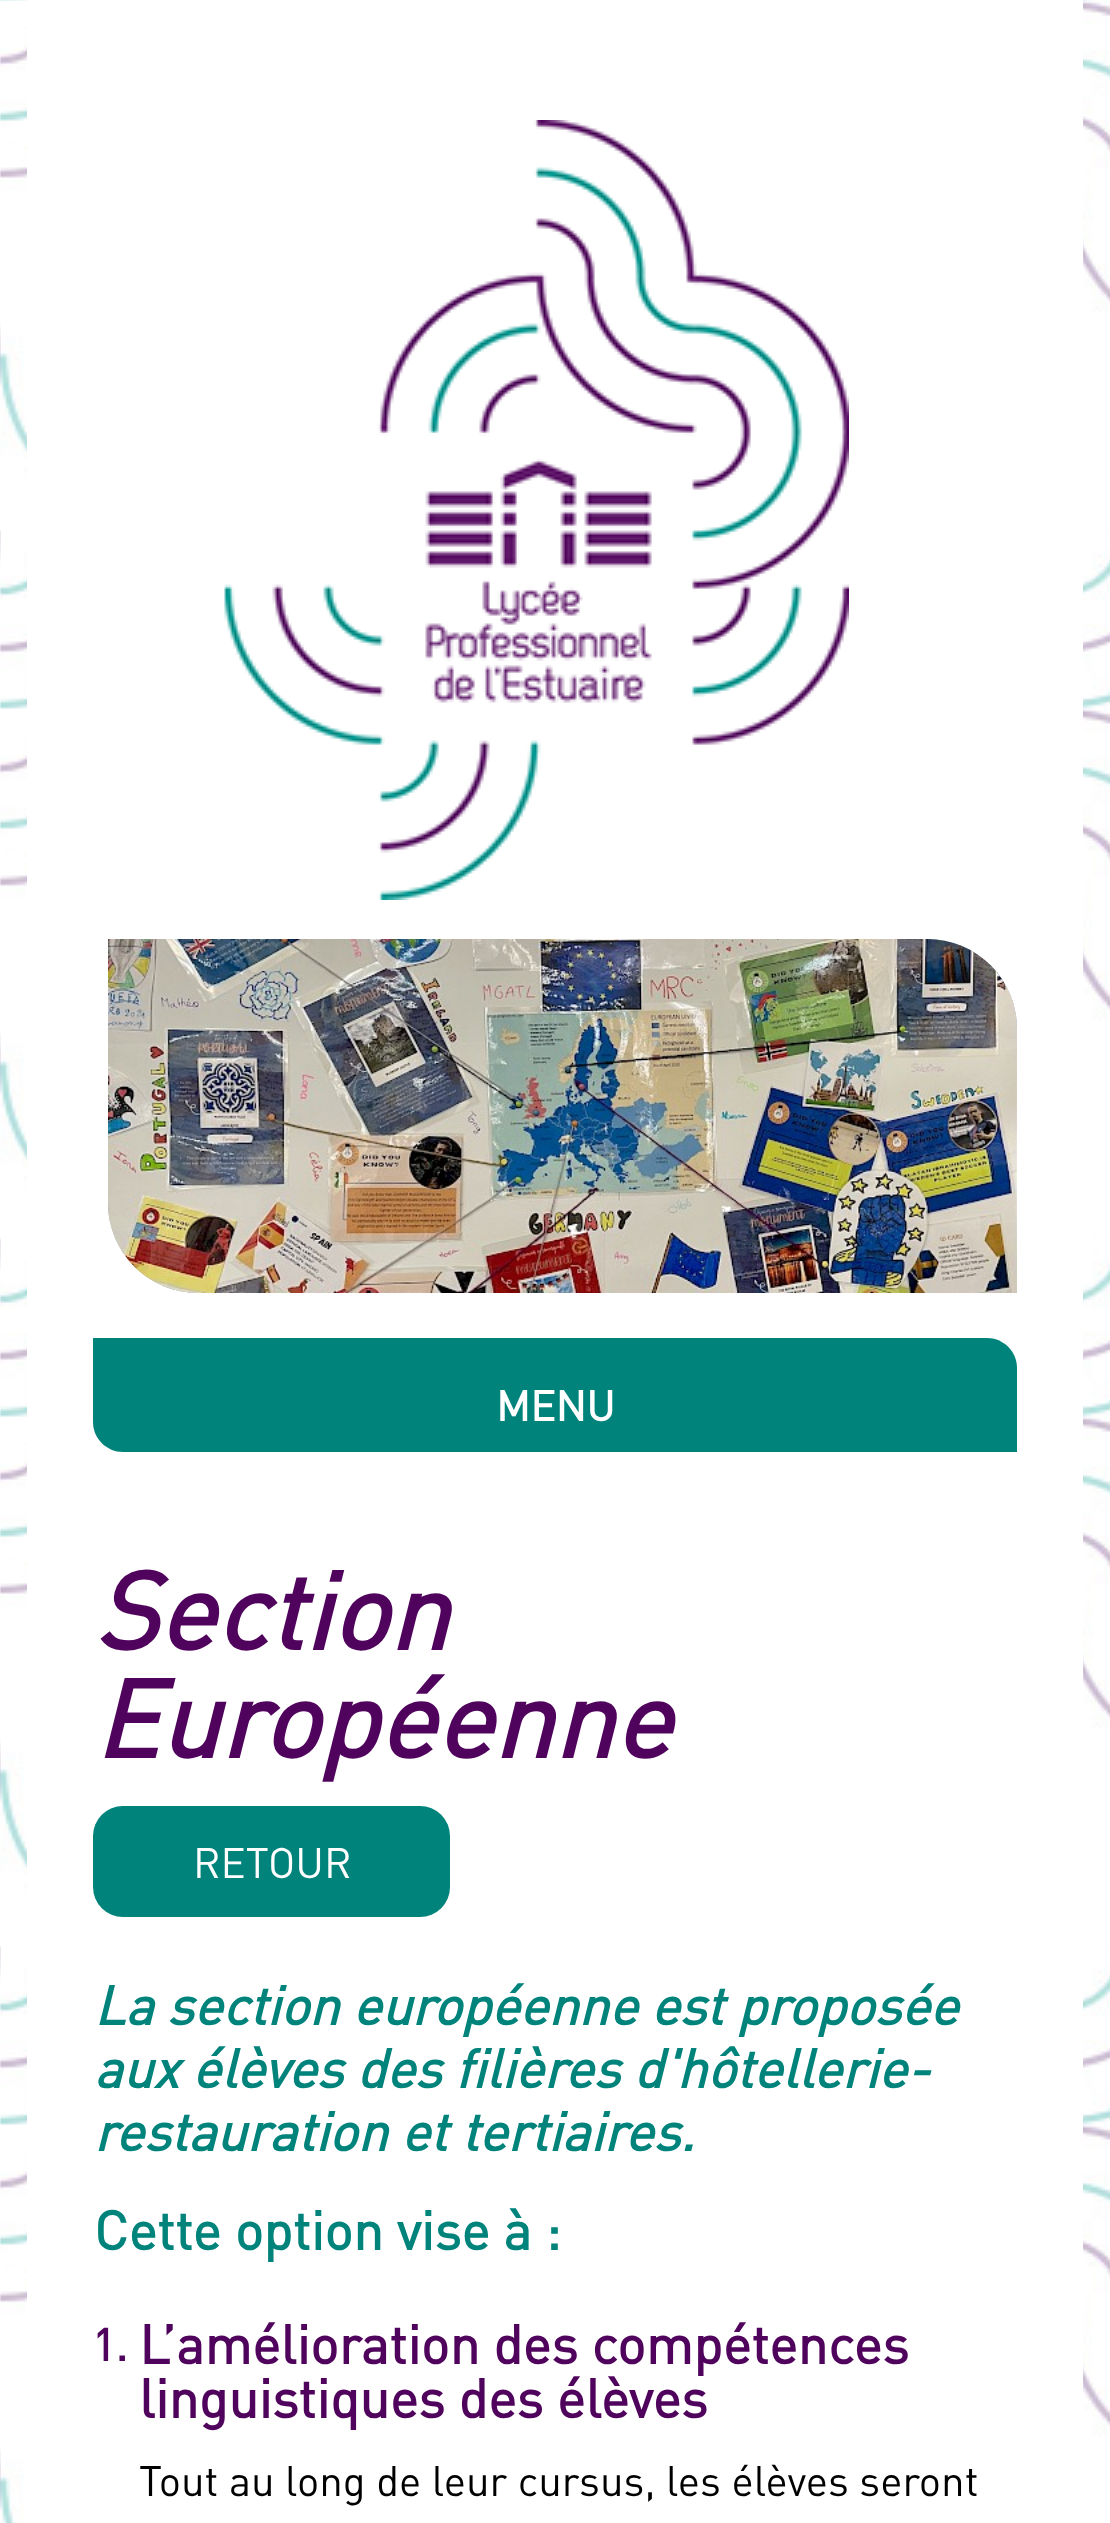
<?xml version="1.0" encoding="UTF-8"?>
<svg xmlns="http://www.w3.org/2000/svg" xmlns:xlink="http://www.w3.org/1999/xlink" width="1110" height="2523">
  <rect width="100%" height="100%" fill="#ffffff" />
  <image x="0" y="0" width="1110" height="2523" xlink:href="image1.png" />
  <rect x="27" width="1056" height="2523" fill="#ffffff" />
  <image x="224" y="120" width="625" height="780" xlink:href="image2.png" />
  <image x="108" y="939" width="909" height="354" xlink:href="image3.png" />
  <image x="108" y="939" width="909" height="354" xlink:href="image4.png" />
  <image x="108" y="939" width="909" height="354" xlink:href="image5.png" />
  <image x="108" y="939" width="909" height="354" xlink:href="image6.png" />
  <image x="108" y="939" width="909" height="354" xlink:href="image7.png" />
  <image x="108" y="939" width="909" height="354" xlink:href="image8.png" />
  <path d="M 93 1338 h 894 c 16.5 0 30 13.5 30 30 v 84 h -894 c -16.5 0 -30 -13.5 -30 -30 z" fill="#00837b" />
  <rect x="93" y="1806" width="357" height="111" rx="30" fill="#00837b" />
  <text x="496" y="1421" style="font-family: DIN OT; font-size: 42px; font-weight: bold; fill: #ffffff">MENU</text>
  <text x="94" y="1650" style="font-family: DIN OT; font-size: 108px; font-weight: bold; font-style: italic; fill: #50035c">Section</text>
  <text x="94" y="1758" style="font-family: DIN OT; font-size: 108px; font-weight: bold; font-style: italic; fill: #50035c">Européenne</text>
  <text x="193" y="1878" style="font-family: DIN OT; font-size: 42px; fill: #ffffff">RETOUR</text>
  <text x="94" y="2025" style="font-family: DIN OT; font-size: 54px; font-weight: bold; font-style: italic; fill: #00837b">La section européenne est proposée</text>
  <text x="94" y="2088" style="font-family: DIN OT; font-size: 54px; font-weight: bold; font-style: italic; fill: #00837b">aux élèves des filières d'hôtellerie-</text>
  <text x="94" y="2151" style="font-family: DIN OT; font-size: 54px; font-weight: bold; font-style: italic; fill: #00837b">restauration et tertiaires.</text>
  <text x="94" y="2250" style="font-family: DIN OT; font-size: 54px; font-weight: bold; fill: #00837b">Cette option vise à :</text>
  <text x="92" y="2361" style="font-family: DIN OT; font-size: 45px; font-weight: bold; fill: #50035c">1.</text>
  <text x="139" y="2364" style="font-family: DIN OT; font-size: 54px; font-weight: bold; fill: #50035c">L’amélioration des compétences</text>
  <text x="139" y="2418" style="font-family: DIN OT; font-size: 54px; font-weight: bold; fill: #50035c">linguistiques des élèves</text>
  <text x="139" y="2496" style="font-family: DIN OT; font-size: 42px; fill: #000000">Tout au long de leur cursus, les élèves seront</text>
</svg>
